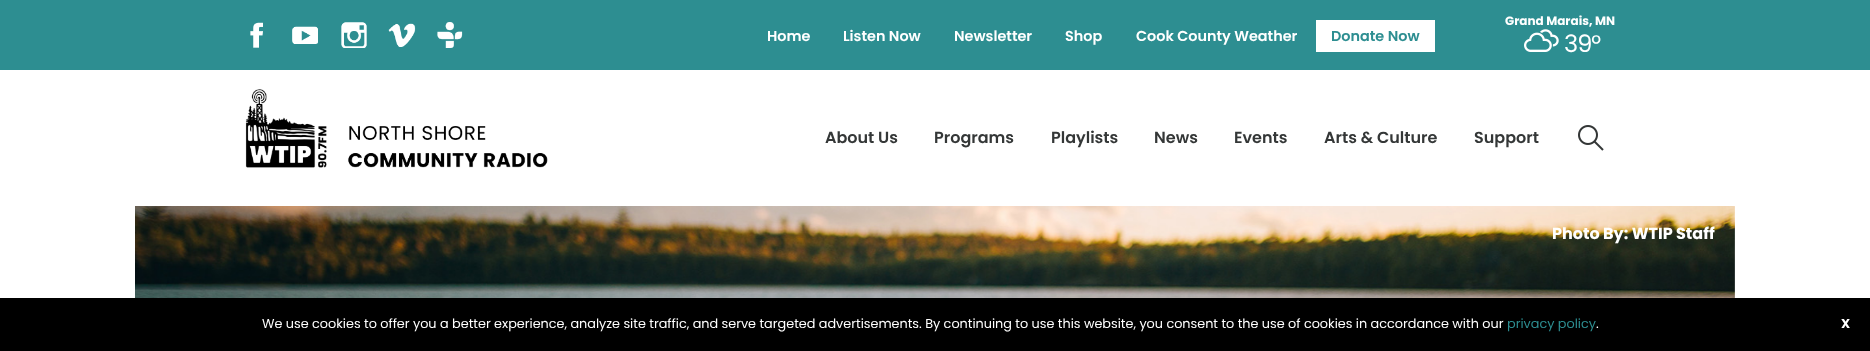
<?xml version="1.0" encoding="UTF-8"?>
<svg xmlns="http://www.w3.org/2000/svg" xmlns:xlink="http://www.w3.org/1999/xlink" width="1870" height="351">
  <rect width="100%" height="100%" fill="#ffffff" />
  <rect width="1870" height="70" fill="#2d8e91" />
  <image x="250" y="22" width="13" height="26" xlink:href="image1.png" />
  <image x="292" y="26" width="26" height="18" xlink:href="image2.png" />
  <image x="341" y="22" width="26" height="26" xlink:href="image3.png" />
  <image x="388" y="23" width="28" height="24" xlink:href="image4.png" />
  <image x="437" y="22" width="26" height="26" xlink:href="image5.png" />
  <rect x="1316" y="20" width="119" height="32" fill="#ffffff" />
  <image x="1524" y="29" width="35" height="23" xlink:href="image6.png" />
  <image x="245" y="89" width="303" height="79" xlink:href="image7.png" />
  <image x="1578" y="125" width="26" height="26" xlink:href="image8.png" />
  <image x="135" y="206" width="1600" height="92" xlink:href="image9.png" />
  <rect y="298" width="1870" height="53" fill="#000000" />
  <text x="767" y="41" style="font-family: Poppins; font-size: 14.4px; font-weight: 600; fill: #ffffff">Home</text>
  <text x="843" y="41" style="font-family: Poppins; font-size: 14.4px; font-weight: 600; fill: #ffffff">Listen Now</text>
  <text x="954" y="41" style="font-family: Poppins; font-size: 14.4px; font-weight: 600; fill: #ffffff">Newsletter</text>
  <text x="1065" y="41" style="font-family: Poppins; font-size: 14.4px; font-weight: 600; fill: #ffffff">Shop</text>
  <text x="1136" y="41" style="font-family: Poppins; font-size: 14.4px; font-weight: 600; fill: #ffffff">Cook County Weather</text>
  <text x="1331" y="41" style="font-family: Poppins; font-size: 14.4px; font-weight: 600; fill: #2d8e91">Donate Now</text>
  <text x="1505" y="25" style="font-family: Poppins; font-size: 12px; font-weight: bold; fill: #ffffff">Grand Marais, MN</text>
  <text x="1564" y="52" style="font-family: Poppins; font-size: 24px; letter-spacing: -1px; fill: #ffffff">39°</text>
  <text x="825" y="143" style="font-family: Poppins; font-size: 16px; font-weight: 600; fill: #343737">About Us</text>
  <text x="934" y="143" style="font-family: Poppins; font-size: 16px; font-weight: 600; fill: #343737">Programs</text>
  <text x="1051" y="143" style="font-family: Poppins; font-size: 16px; font-weight: 600; fill: #343737">Playlists</text>
  <text x="1154" y="143" style="font-family: Poppins; font-size: 16px; font-weight: 600; fill: #343737">News</text>
  <text x="1234" y="143" style="font-family: Poppins; font-size: 16px; font-weight: 600; fill: #343737">Events</text>
  <text x="1324" y="143" style="font-family: Poppins; font-size: 16px; font-weight: 600; fill: #343737">Arts &amp; Culture</text>
  <text x="1474" y="143" style="font-family: Poppins; font-size: 16px; font-weight: 600; fill: #343737">Support</text>
  <text x="1552" y="239" style="font-family: Poppins; font-size: 16px; font-weight: bold; fill: #ffffff">Photo By: WTIP Staff</text>
  <text x="262" y="328" style="font-family: Poppins; font-size: 12.8px; fill: #ffffff">We use cookies to offer you a better experience, analyze site traffic, and serve targeted advertisements. By continuing to use this website, you consent to the use of cookies in accordance with our</text>
  <text x="1507" y="328" style="font-family: Poppins; font-size: 12.8px; fill: #2d8e91">privacy policy</text>
  <text x="1596" y="328" style="font-family: Poppins; font-size: 12.8px; fill: #ffffff">.</text>
  <text x="1841" y="328" style="font-family: Poppins; font-size: 12.8px; font-weight: bold; fill: #ffffff">X</text>
</svg>
